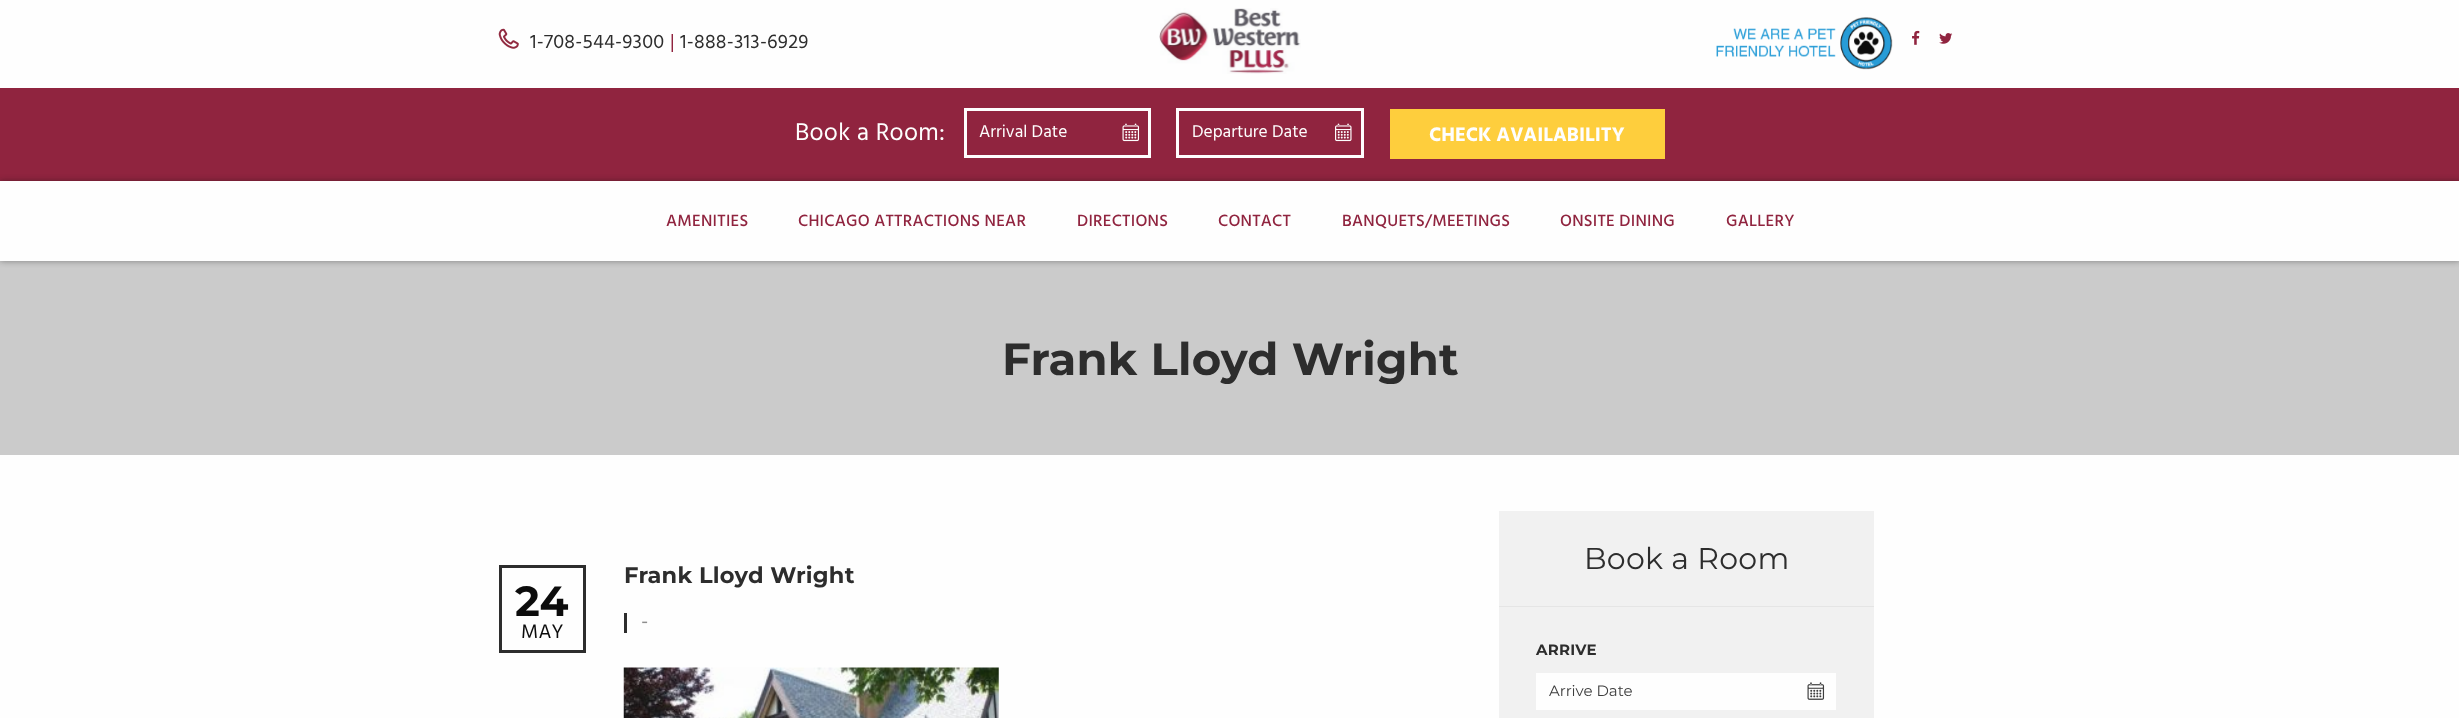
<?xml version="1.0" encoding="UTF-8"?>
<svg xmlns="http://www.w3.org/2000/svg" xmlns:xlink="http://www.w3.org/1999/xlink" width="2459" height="718">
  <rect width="100%" height="100%" fill="#fefefe" />
  <image x="498" y="28" width="21" height="21" xlink:href="image1.png" />
  <image x="1159" y="8" width="142" height="66" xlink:href="image2.png" />
  <image x="1716" y="17" width="177" height="53" xlink:href="image3.png" />
  <image x="1912" y="30" width="8" height="15" xlink:href="image4.png" />
  <image x="1939" y="33" width="14" height="11" xlink:href="image5.png" />
  <rect y="88" width="2459" height="93" fill="#90243f" />
  <rect x="965.5" y="109.5" width="184" height="47" fill="none" stroke="#fefefe" stroke-width="3" />
  <image x="1122" y="123" width="18" height="19" xlink:href="image6.png" />
  <rect x="1177.5" y="109.5" width="185" height="47" fill="none" stroke="#fefefe" stroke-width="3" />
  <image x="1335" y="123" width="17" height="19" xlink:href="image7.png" />
  <rect x="1390" y="109" width="275" height="50" fill="#fece3d" />
  <rect y="261" width="2459" height="194" fill="#cbcbcb" />
  <rect y="181" width="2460" height="80" fill="#0c0c0c" fill-opacity="0.4" filter="blur(3px)" />
  <rect y="181" width="2459" height="80" fill="#fefefe" />
  <rect x="500.5" y="566.5" width="84" height="85" fill="none" stroke="#2d2d2d" stroke-width="3" />
  <rect x="624" y="613" width="3" height="20" fill="#2d2d2d" />
  <image x="623" y="667" width="376" height="51" xlink:href="image8.png" />
  <rect x="1499" y="511" width="375" height="207" fill="#f1f1f1" />
  <rect x="1499" y="606" width="375" height="1" fill="#e5e5e5" />
  <rect x="1536" y="673" width="300" height="37" fill="#fefefe" />
  <image x="1807" y="682" width="18" height="18" xlink:href="image9.png" />
  <rect x="1228" y="358" width="5" height="5" fill="#8c1f37" fill-opacity="0.05" />
  <text x="530" y="48" style="font-family: Hind; font-size: 20px; letter-spacing: 0.25px; fill: #2d2d2d">1-708-544-9300</text>
  <text x="670" y="48" style="font-family: Hind; font-size: 20px; letter-spacing: 0.25px; fill: #90243f">|</text>
  <text x="680" y="48" style="font-family: Hind; font-size: 20px; letter-spacing: 0.25px; fill: #2d2d2d">1-888-313-6929</text>
  <text x="795" y="140" style="font-family: Hind; font-size: 25px; letter-spacing: 0.25px; fill: #fefefe">Book a Room:</text>
  <text x="979" y="137" style="font-family: Hind; font-size: 17.5px; fill: #fefefe">Arrival Date</text>
  <text x="1192" y="137" style="font-family: Hind; font-size: 17.5px; fill: #fefefe">Departure Date</text>
  <text x="1429" y="141" style="font-family: Hind; font-size: 20px; font-weight: bold; fill: #fefefe">CHECK AVAILABILITY</text>
  <text x="666" y="226" style="font-family: Hind; font-size: 16.75px; font-weight: 500; letter-spacing: 0.25px; fill: #90243f">AMENITIES</text>
  <text x="798" y="226" style="font-family: Hind; font-size: 16.75px; font-weight: 500; letter-spacing: 0.25px; fill: #90243f">CHICAGO ATTRACTIONS NEAR</text>
  <text x="1077" y="226" style="font-family: Hind; font-size: 16.75px; font-weight: 500; letter-spacing: 0.25px; fill: #90243f">DIRECTIONS</text>
  <text x="1218" y="226" style="font-family: Hind; font-size: 16.75px; font-weight: 500; letter-spacing: 0.25px; fill: #90243f">CONTACT</text>
  <text x="1342" y="226" style="font-family: Hind; font-size: 16.75px; font-weight: 500; letter-spacing: 0.25px; fill: #90243f">BANQUETS/MEETINGS</text>
  <text x="1560" y="226" style="font-family: Hind; font-size: 16.75px; font-weight: 500; letter-spacing: 0.25px; fill: #90243f">ONSITE DINING</text>
  <text x="1726" y="226" style="font-family: Hind; font-size: 16.75px; font-weight: 500; letter-spacing: 0.25px; fill: #90243f">GALLERY</text>
  <text x="1002" y="375" style="font-family: Montserrat; font-size: 45px; font-weight: bold; letter-spacing: 0.25px; fill: #2d2d2d">Frank Lloyd Wright</text>
  <text x="515" y="616" style="font-family: Montserrat; font-size: 42px; font-weight: bold; letter-spacing: 0.25px; fill: #0c0c0c">24</text>
  <text x="521" y="638" style="font-family: Hind; font-size: 20px; letter-spacing: 0.25px; fill: #0c0c0c">MAY</text>
  <text x="624" y="583" style="font-family: Montserrat; font-size: 22.5px; font-weight: bold; letter-spacing: 0.25px; fill: #2d2d2d">Frank Lloyd Wright</text>
  <text x="641" y="628" style="font-family: Hind; font-size: 21px; fill: #8e8e8e">-</text>
  <text x="1584" y="569" style="font-family: Montserrat; font-size: 30px; letter-spacing: 0.25px; fill: #2d2d2d">Book a Room</text>
  <text x="1536" y="655" style="font-family: Montserrat; font-size: 15px; font-weight: bold; letter-spacing: 0.25px; fill: #2d2d2d">ARRIVE</text>
  <text x="1549" y="696" style="font-family: Montserrat; font-size: 15px; fill: #3d3d3d">Arrive Date</text>
</svg>
